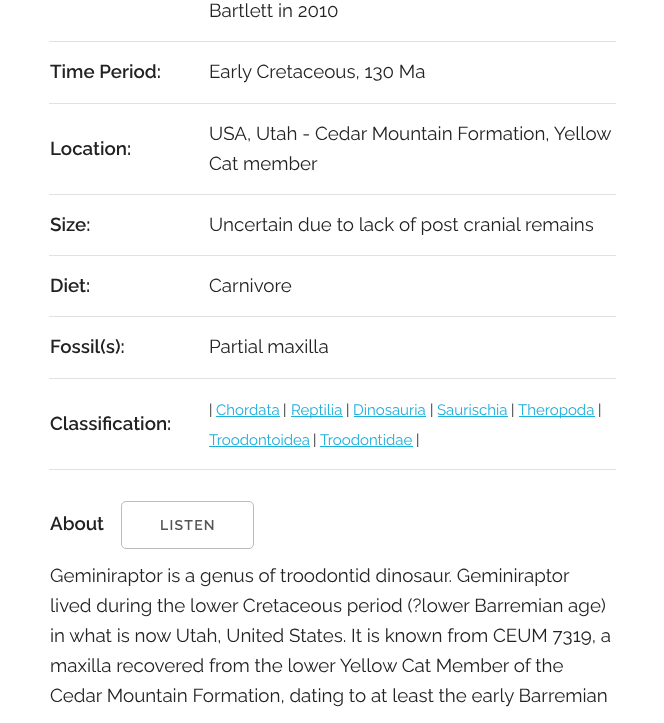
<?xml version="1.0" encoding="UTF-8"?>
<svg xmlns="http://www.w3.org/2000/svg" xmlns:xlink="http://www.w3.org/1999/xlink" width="664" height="723">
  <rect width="100%" height="100%" fill="#ffffff" />
  <rect x="49" y="41" width="567" height="1" fill="#e1e1e1" />
  <rect x="49" y="103" width="567" height="1" fill="#e1e1e1" />
  <rect x="49" y="194" width="567" height="1" fill="#e1e1e1" />
  <rect x="49" y="255" width="567" height="1" fill="#e1e1e1" />
  <rect x="49" y="316" width="567" height="1" fill="#e1e1e1" />
  <rect x="49" y="378" width="567" height="1" fill="#e1e1e1" />
  <rect x="49" y="469" width="567" height="1" fill="#e1e1e1" />
  <rect x="216" y="416" width="64" height="1" fill="#1eaedb" />
  <rect x="291" y="416" width="52" height="1" fill="#1eaedb" />
  <rect x="354" y="416" width="72" height="1" fill="#1eaedb" />
  <rect x="438" y="416" width="70" height="1" fill="#1eaedb" />
  <rect x="519" y="416" width="76" height="1" fill="#1eaedb" />
  <rect x="209" y="446" width="101" height="1" fill="#1eaedb" />
  <rect x="320" y="446" width="93" height="1" fill="#1eaedb" />
  <rect x="121.5" y="501.5" width="132" height="47" rx="4.5" fill="none" stroke="#bbbbbb" />
  <text x="209" y="17" style="font-family: Raleway; font-size: 18.75px; fill: #222222">Bartlett in 2010</text>
  <text x="50" y="78" style="font-family: Raleway; font-size: 18.75px; font-weight: 600; fill: #222222">Time Period:</text>
  <text x="209" y="78" style="font-family: Raleway; font-size: 18.75px; fill: #222222">Early Cretaceous, 130 Ma</text>
  <text x="50" y="155" style="font-family: Raleway; font-size: 18.75px; font-weight: 600; fill: #222222">Location:</text>
  <text x="209" y="140" style="font-family: Raleway; font-size: 18.75px; fill: #222222">USA, Utah - Cedar Mountain Formation, Yellow</text>
  <text x="209" y="170" style="font-family: Raleway; font-size: 18.75px; fill: #222222">Cat member</text>
  <text x="50" y="231" style="font-family: Raleway; font-size: 18.75px; font-weight: 600; fill: #222222">Size:</text>
  <text x="209" y="231" style="font-family: Raleway; font-size: 18.75px; fill: #222222">Uncertain due to lack of post cranial remains</text>
  <text x="50" y="292" style="font-family: Raleway; font-size: 18.75px; font-weight: 600; fill: #222222">Diet:</text>
  <text x="209" y="292" style="font-family: Raleway; font-size: 18.75px; fill: #222222">Carnivore</text>
  <text x="50" y="353" style="font-family: Raleway; font-size: 18.75px; font-weight: 600; fill: #222222">Fossil(s):</text>
  <text x="209" y="353" style="font-family: Raleway; font-size: 18.75px; fill: #222222">Partial maxilla</text>
  <text x="50" y="430" style="font-family: Raleway; font-size: 18.75px; font-weight: 600; fill: #222222">Classification:</text>
  <text x="209" y="415" style="font-family: Raleway; font-size: 15px; fill: #222222">|</text>
  <text x="216" y="415" style="font-family: Raleway; font-size: 15px; fill: #1eaedb">Chordata</text>
  <text x="283" y="415" style="font-family: Raleway; font-size: 15px; fill: #222222">|</text>
  <text x="291" y="415" style="font-family: Raleway; font-size: 15px; fill: #1eaedb">Reptilia</text>
  <text x="346" y="415" style="font-family: Raleway; font-size: 15px; fill: #222222">|</text>
  <text x="353" y="415" style="font-family: Raleway; font-size: 15px; fill: #1eaedb">Dinosauria</text>
  <text x="430" y="415" style="font-family: Raleway; font-size: 15px; fill: #222222">|</text>
  <text x="437" y="415" style="font-family: Raleway; font-size: 15px; fill: #1eaedb">Saurischia</text>
  <text x="511" y="415" style="font-family: Raleway; font-size: 15px; fill: #222222">|</text>
  <text x="518" y="415" style="font-family: Raleway; font-size: 15px; fill: #1eaedb">Theropoda</text>
  <text x="598" y="415" style="font-family: Raleway; font-size: 15px; fill: #222222">|</text>
  <text x="209" y="445" style="font-family: Raleway; font-size: 15px; fill: #1eaedb">Troodontoidea</text>
  <text x="313" y="445" style="font-family: Raleway; font-size: 15px; fill: #222222">|</text>
  <text x="320" y="445" style="font-family: Raleway; font-size: 15px; fill: #1eaedb">Troodontidae</text>
  <text x="416" y="445" style="font-family: Raleway; font-size: 15px; fill: #222222">|</text>
  <text x="50" y="530" style="font-family: Raleway; font-size: 18.75px; font-weight: 600; fill: #222222">About</text>
  <text x="160" y="530" style="font-family: Raleway; font-size: 14px; font-weight: 600; letter-spacing: 1.25px; fill: #555555">LISTEN</text>
  <text x="50" y="582" style="font-family: Raleway; font-size: 18.75px; fill: #222222">Geminiraptor is a genus of troodontid dinosaur. Geminiraptor</text>
  <text x="50" y="612" style="font-family: Raleway; font-size: 18.75px; fill: #222222">lived during the lower Cretaceous period (?lower Barremian age)</text>
  <text x="50" y="642" style="font-family: Raleway; font-size: 18.75px; fill: #222222">in what is now Utah, United States. It is known from CEUM 7319, a</text>
  <text x="50" y="672" style="font-family: Raleway; font-size: 18.75px; fill: #222222">maxilla recovered from the lower Yellow Cat Member of the</text>
  <text x="50" y="702" style="font-family: Raleway; font-size: 18.75px; fill: #222222">Cedar Mountain Formation, dating to at least the early Barremian</text>
</svg>
